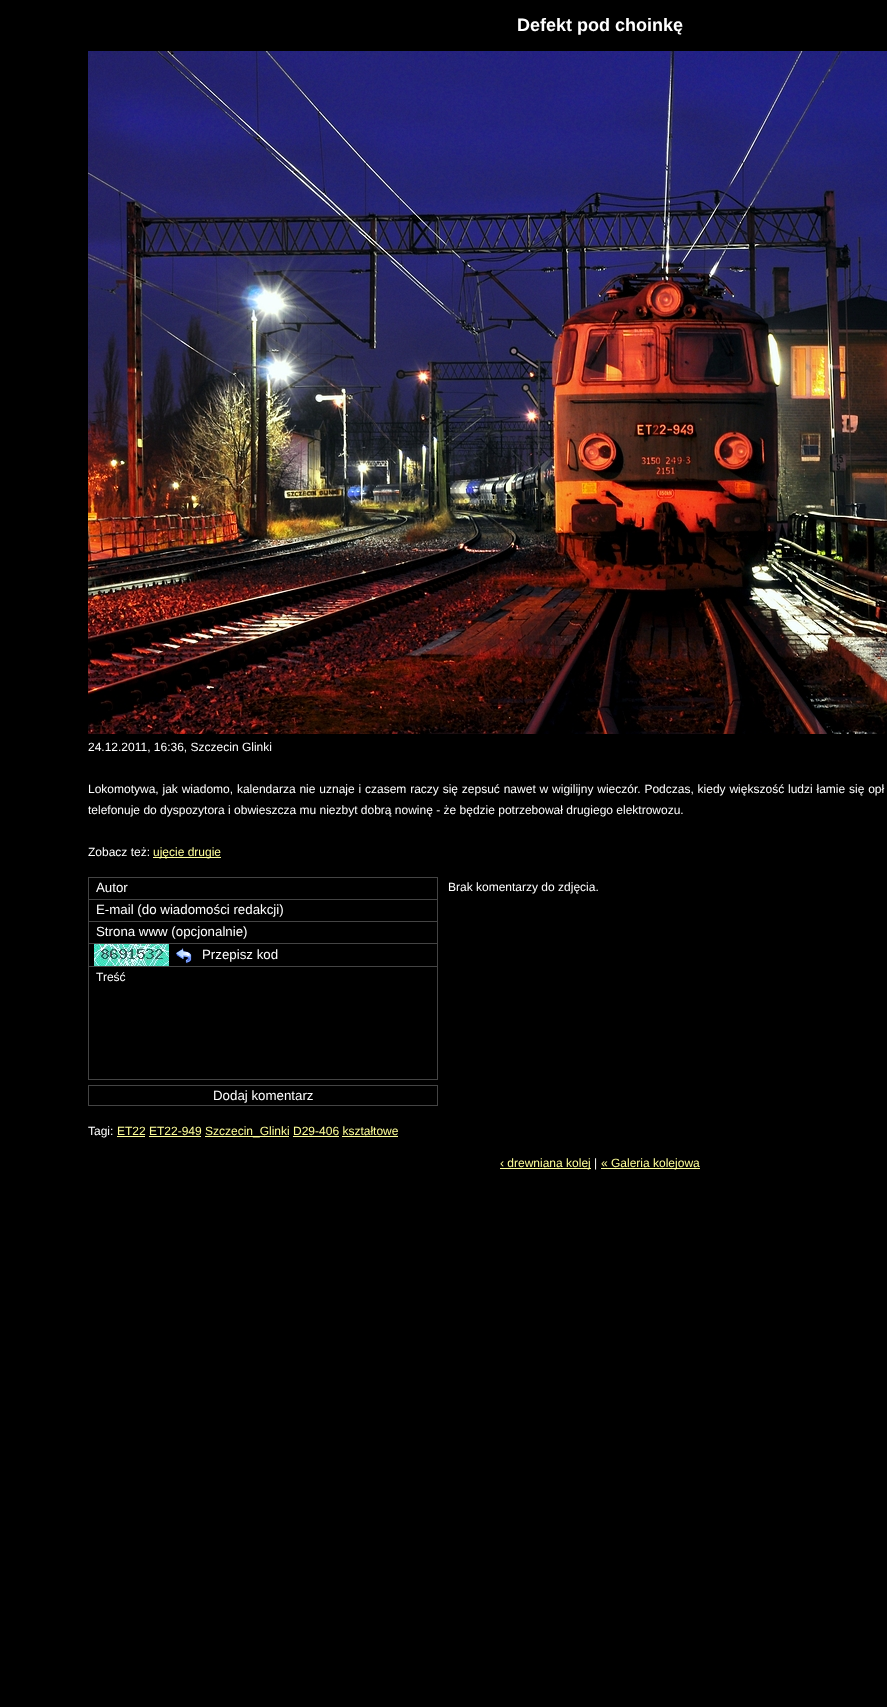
<?xml version="1.0" encoding="UTF-8"?>
<svg xmlns="http://www.w3.org/2000/svg" xmlns:xlink="http://www.w3.org/1999/xlink" width="887" height="1707">
  <rect width="100%" height="100%" fill="#000000" />
  <image x="88" y="51" width="799" height="683" xlink:href="image1.png" />
  <rect x="153" y="857" width="68" height="1" fill="#ffff99" />
  <rect x="88.5" y="877.5" width="349" height="202" fill="none" stroke="#444444" />
  <rect x="89" y="899" width="348" height="1" fill="#444444" />
  <rect x="89" y="921" width="348" height="1" fill="#444444" />
  <rect x="89" y="943" width="348" height="1" fill="#444444" />
  <rect x="89" y="966" width="348" height="1" fill="#444444" />
  <image x="94" y="944" width="75" height="22" xlink:href="image2.png" />
  <image x="176" y="948" width="16" height="16" xlink:href="image3.png" />
  <rect x="88.5" y="1085.5" width="349" height="20" fill="none" stroke="#444444" />
  <rect x="117" y="1136" width="28" height="1" fill="#ffff99" />
  <rect x="205" y="1136" width="84" height="1" fill="#ffff99" />
  <rect x="149" y="1136" width="52" height="1" fill="#ffff99" />
  <rect x="293" y="1136" width="46" height="1" fill="#ffff99" />
  <rect x="342" y="1136" width="56" height="1" fill="#ffff99" />
  <rect x="500" y="1168" width="91" height="1" fill="#ffff99" />
  <rect x="601" y="1168" width="99" height="1" fill="#ffff99" />
  <text x="517" y="31" style="font-family: Liberation Sans; font-size: 18px; font-weight: bold; fill: #ffffff">Defekt pod choinkę</text>
  <text x="88" y="751" style="font-family: Liberation Sans; font-size: 12px; fill: #ffffff">24.12.2011, 16:36, Szczecin Glinki</text>
  <text x="88" y="793" word-spacing="0.5" style="font-family: Liberation Sans; font-size: 12px; fill: #ffffff">Lokomotywa, jak wiadomo, kalendarza nie uznaje i czasem raczy się zepsuć nawet w wigilijny wieczór. Podczas, kiedy większość ludzi łamie się opł</text>
  <text x="88" y="814" style="font-family: Liberation Sans; font-size: 12px; fill: #ffffff">telefonuje do dyspozytora i obwieszcza mu niezbyt dobrą nowinę - że będzie potrzebował drugiego elektrowozu.</text>
  <text x="88" y="856" style="font-family: Liberation Sans; font-size: 12px; fill: #ffffff">Zobacz też:</text>
  <text x="153" y="856" style="font-family: Liberation Sans; font-size: 12px; fill: #ffff99">ujęcie drugie</text>
  <text x="96" y="892" style="font-family: Liberation Sans; font-size: 13.3px; fill: #ffffff">Autor</text>
  <text x="96" y="914" style="font-family: Liberation Sans; font-size: 13.3px; fill: #ffffff">E-mail (do wiadomości redakcji)</text>
  <text x="96" y="936" style="font-family: Liberation Sans; font-size: 13.3px; fill: #ffffff">Strona www (opcjonalnie)</text>
  <text x="202" y="959" style="font-family: Liberation Sans; font-size: 13.3px; fill: #ffffff">Przepisz kod</text>
  <text x="96" y="981" style="font-family: Liberation Sans; font-size: 12px; fill: #ffffff">Treść</text>
  <text x="213" y="1100" style="font-family: Liberation Sans; font-size: 13.3px; fill: #ffffff">Dodaj komentarz</text>
  <text x="448" y="891" style="font-family: Liberation Sans; font-size: 12px; fill: #ffffff">Brak komentarzy do zdjęcia.</text>
  <text x="88" y="1135" style="font-family: Liberation Sans; font-size: 12px; fill: #ffffff">Tagi:</text>
  <text x="117" y="1135" style="font-family: Liberation Sans; font-size: 12px; fill: #ffff99">ET22 ET22-949</text>
  <text x="205" y="1135" style="font-family: Liberation Sans; font-size: 12px; fill: #ffff99">Szczecin_Glinki D29-406 kształtowe</text>
  <text x="500" y="1167" style="font-family: Liberation Sans; font-size: 12px; fill: #ffff99">‹ drewniana kolej</text>
  <text x="594" y="1167" style="font-family: Liberation Sans; font-size: 12px; fill: #ffffff">|</text>
  <text x="601" y="1167" style="font-family: Liberation Sans; font-size: 12px; fill: #ffff99">« Galeria kolejowa</text>
</svg>
